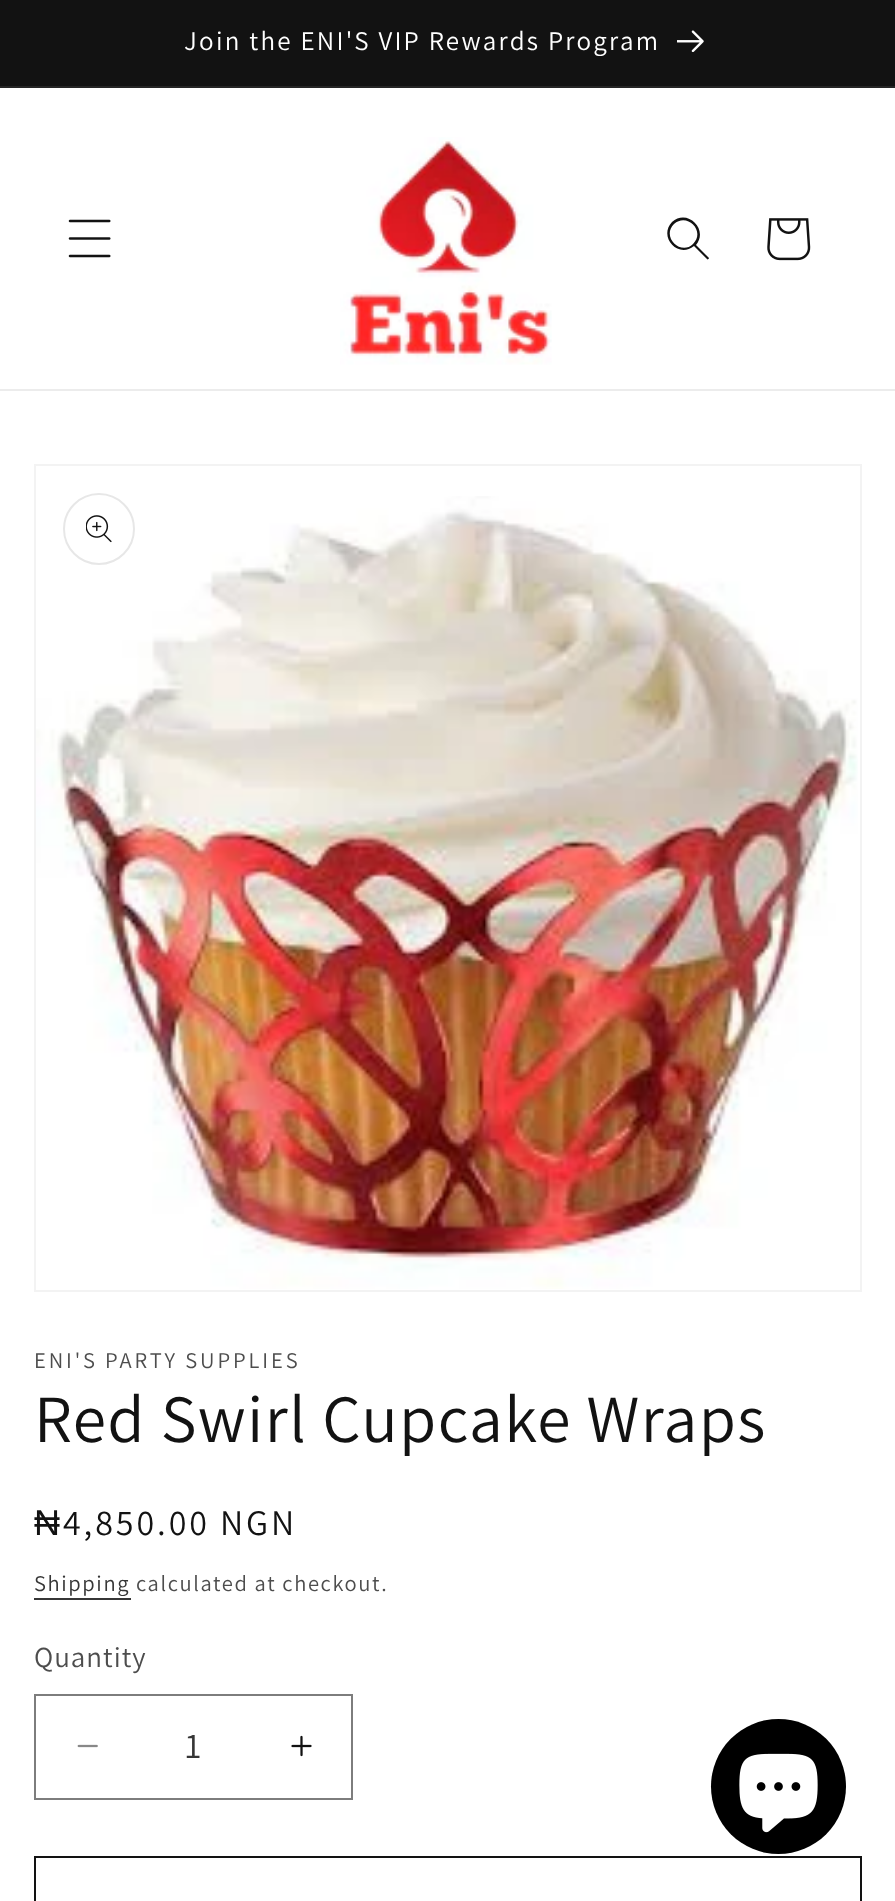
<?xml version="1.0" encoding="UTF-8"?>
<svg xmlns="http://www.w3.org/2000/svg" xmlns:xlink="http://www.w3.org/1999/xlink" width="895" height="1901">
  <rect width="100%" height="100%" fill="#ffffff" />
  <rect width="895" height="86" fill="#121212" />
  <rect y="86" width="895" height="2" fill="#252525" />
  <image x="677" y="30" width="27" height="22" xlink:href="image1.png" />
  <rect y="389" width="895" height="2" fill="#ececec" />
  <image x="68" y="219" width="43" height="39" xlink:href="image2.png" />
  <image x="340" y="137" width="212" height="228" xlink:href="image3.png" />
  <path d="M 693 244 c -12 12 -32 -7 -19 -20 c 13 -12 32 7 19 20 m 1 2 c -16 13 -36 -9 -22 -24 c 15 -14 37 7 24 23 l 13 13 c 0 1 -2 2 -2 1 z" fill="#121212" fill-rule="evenodd" />
  <image x="767" y="218" width="44" height="43" xlink:href="image4.png" />
  <rect x="35" y="465" width="826" height="826" fill="none" stroke="#f3f3f3" stroke-width="2" />
  <image x="36" y="496" width="822" height="793" xlink:href="image6.png" />
  <circle cx="99" cy="529" r="35" fill="none" stroke="#e7e7e7" stroke-width="2" />
  <image x="86" y="515" width="26" height="28" xlink:href="image5.png" />
  <rect x="34" y="1598" width="97" height="2" fill="#363636" />
  <image x="77" y="1744" width="21" height="4" xlink:href="image7.png" />
  <image x="291" y="1735" width="21" height="22" xlink:href="image8.png" />
  <rect x="35" y="1695" width="317" height="104" fill="none" stroke="#7d7d7d" stroke-width="2" />
  <rect x="35" y="1857" width="826" height="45" fill="none" stroke="#121212" stroke-width="2" />
  <circle cx="778.5" cy="1786.5" r="67.5" fill="#000000" />
  <image x="739" y="1753" width="79" height="80" xlink:href="image9.png" />
  <text x="184" y="50" style="font-family: Assistant; font-size: 27px; letter-spacing: 2.25px; fill: #ffffff">Join the ENI'S VIP Rewards Program</text>
  <text x="34" y="1368" style="font-family: Assistant; font-size: 22.5px; letter-spacing: 2.9px; fill: #4d4d4d">ENI'S PARTY SUPPLIES</text>
  <text x="34" y="1442" style="font-family: Assistant; font-size: 67.5px; letter-spacing: 1.35px; fill: #121212">Red Swirl Cupcake Wraps</text>
  <text x="34" y="1535" style="font-family: Liberation Sans; font-size: 36px; letter-spacing: 2.9px; fill: #121212">₦</text>
  <text x="63" y="1535" style="font-family: Assistant; font-size: 36px; letter-spacing: 2.9px; fill: #121212">4,850.00 NGN</text>
  <text x="34" y="1591" style="font-family: Assistant; font-size: 22.5px; letter-spacing: 1.6px; fill: #363636">Shipping</text>
  <text x="136" y="1591" style="font-family: Assistant; font-size: 22.5px; letter-spacing: 1.6px; fill: #4d4d4d">calculated at checkout.</text>
  <text x="34" y="1667" style="font-family: Assistant; font-size: 29px; letter-spacing: 1px; fill: #4d4d4d">Quantity</text>
  <text x="185" y="1758" style="font-family: Assistant; font-size: 36px; fill: #363636">1</text>
</svg>
